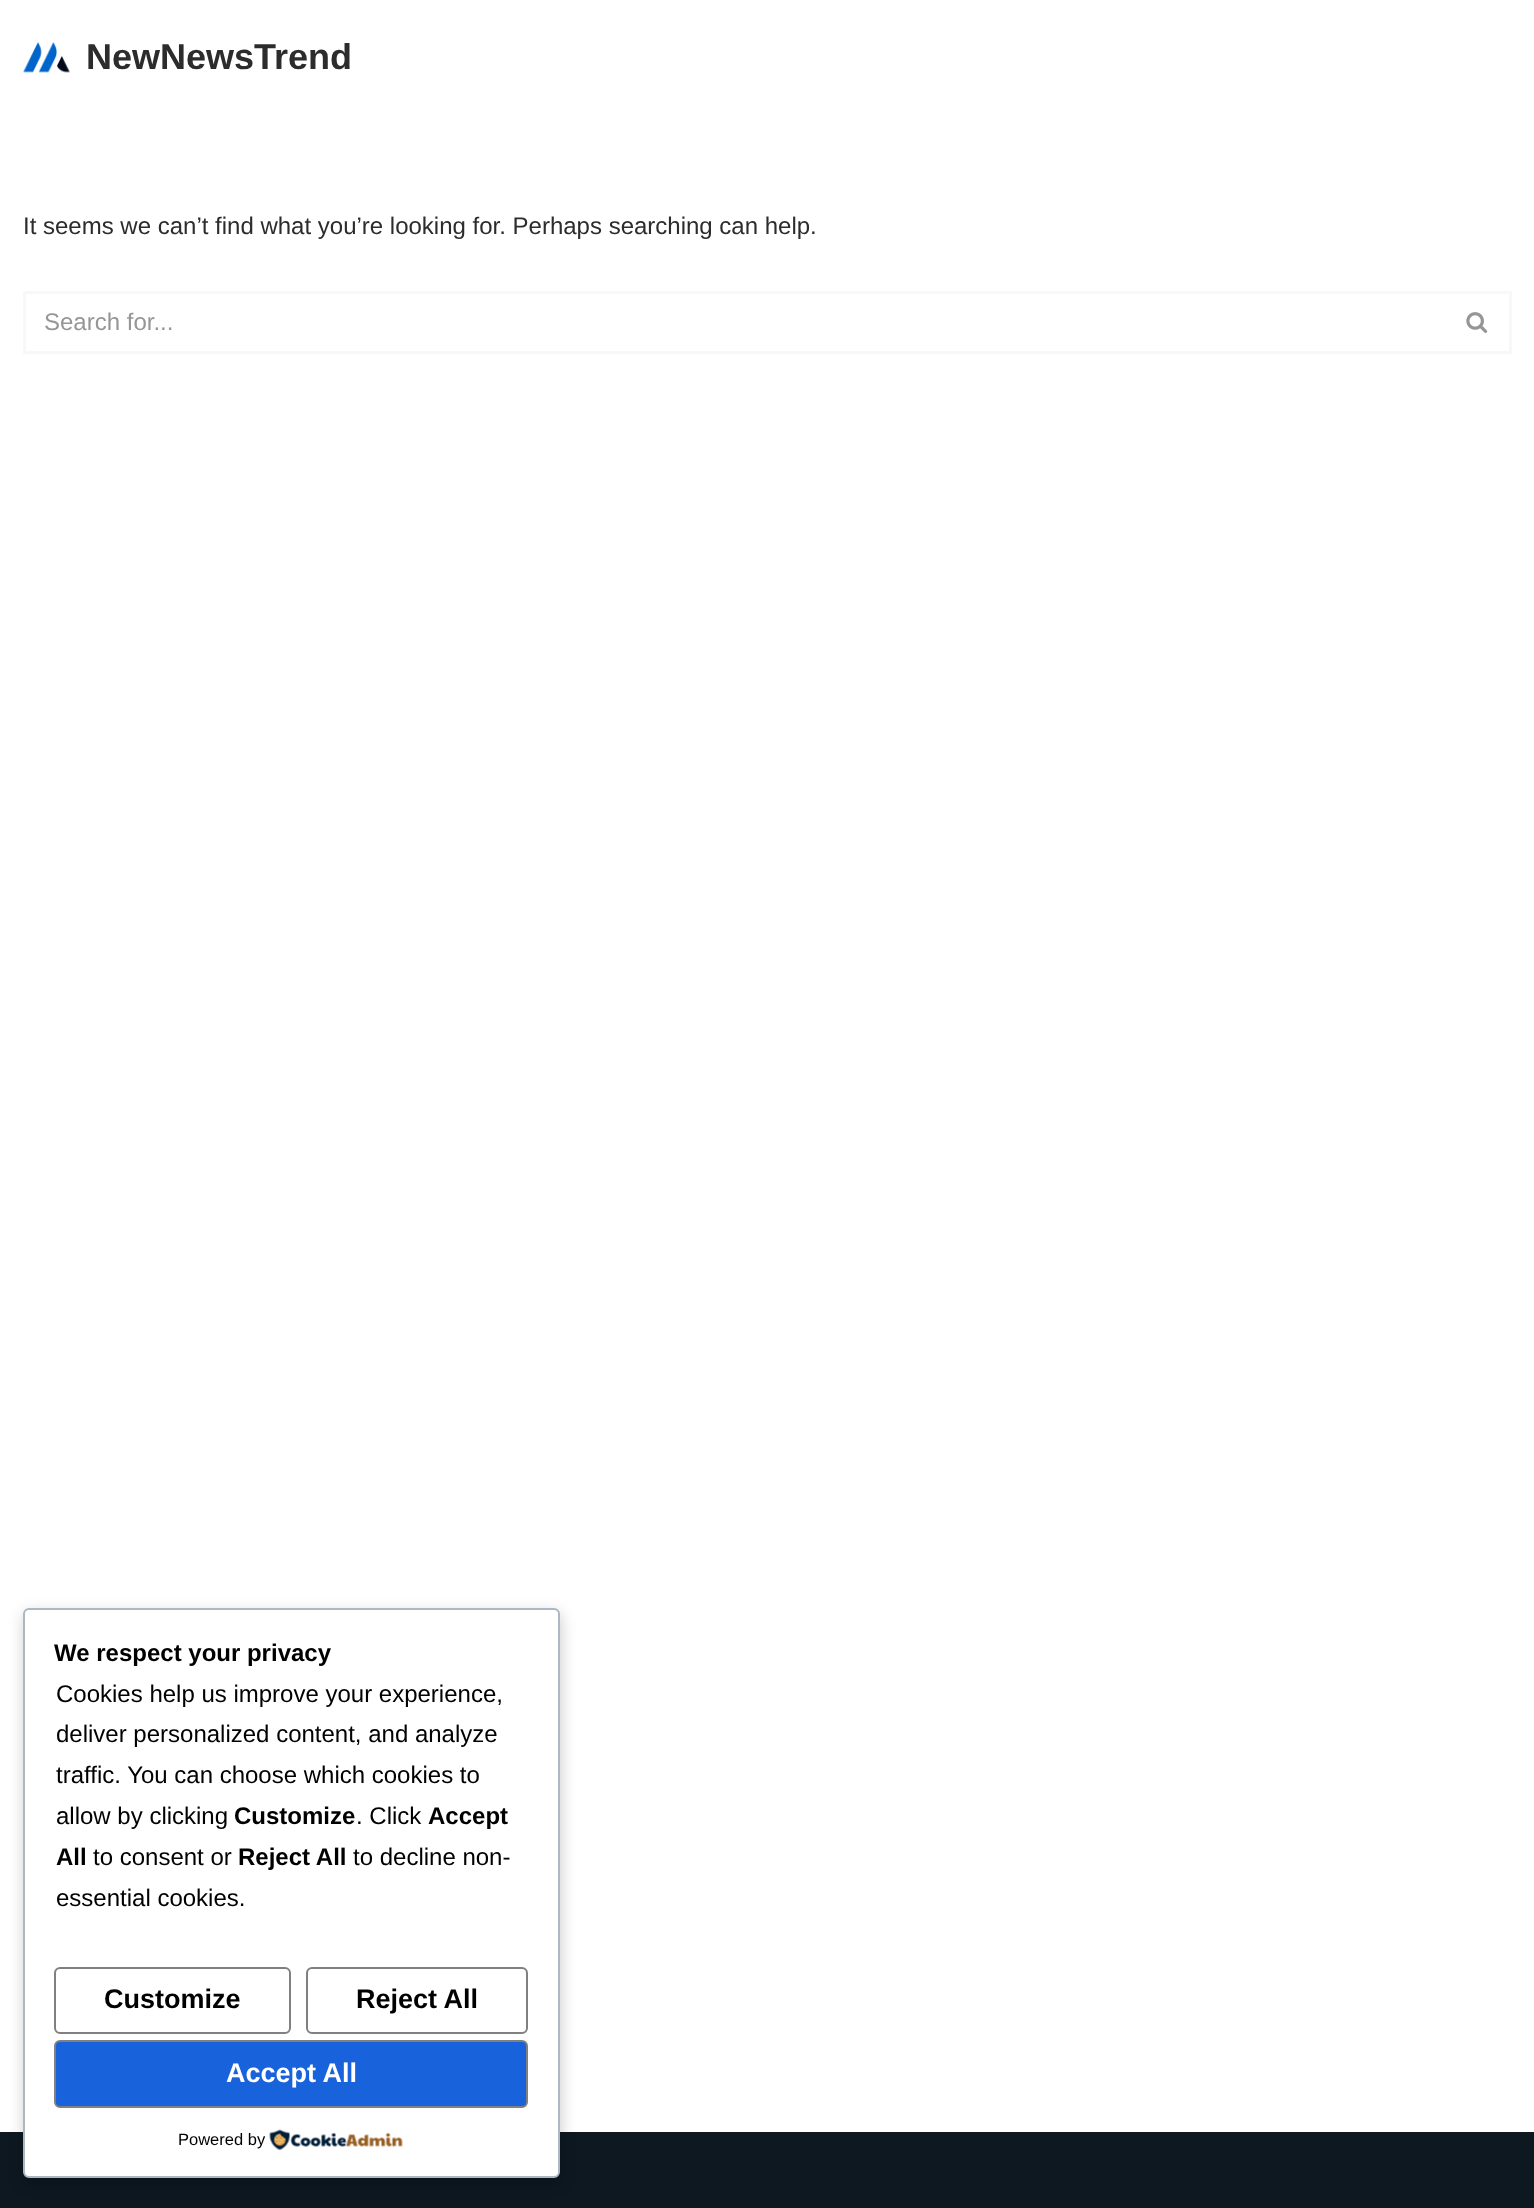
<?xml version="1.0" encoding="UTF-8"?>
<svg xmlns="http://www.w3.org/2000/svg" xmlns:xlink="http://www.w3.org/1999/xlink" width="1534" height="2208">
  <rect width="100%" height="100%" fill="#ffffff" />
  <image x="23" y="42" width="47" height="31" xlink:href="image1.png" />
  <rect x="23" y="291" width="1489" height="3" fill="#f8f8f8" />
  <rect x="23" y="351" width="1422" height="3" fill="#f8f8f8" />
  <rect x="23" y="291" width="3" height="63" fill="#f8f8f8" />
  <rect x="1509" y="291" width="3" height="63" fill="#f8f8f8" />
  <rect x="1445" y="351" width="67" height="3" fill="#f8f8f8" />
  <image x="1466" y="312" width="22" height="21" xlink:href="image2.png" />
  <rect y="2132" width="1534" height="76" fill="#0d1821" />
  <rect x="24" y="1613" width="537" height="570" rx="6" fill="#000000" fill-opacity="0.2" filter="blur(7.5px)" />
  <rect x="24" y="1609" width="535" height="568" rx="5" fill="#ffffff" stroke="#abb8c3" stroke-width="2" />
  <rect x="55" y="1968" width="235" height="65" rx="5" fill="none" stroke="#808080" stroke-width="2" />
  <rect x="307" y="1968" width="220" height="65" rx="5" fill="none" stroke="#808080" stroke-width="2" />
  <rect x="55" y="2041" width="472" height="66" rx="5" fill="#1863dc" stroke="#808080" stroke-width="2" />
  <image x="269" y="2129" width="134" height="22" xlink:href="image3.png" />
  <text x="86" y="69" style="font-family: Liberation Sans; font-size: 36px; font-weight: bold; fill: #2c2c2c">NewNewsTrend</text>
  <text x="23" y="234" style="font-family: Liberation Sans; font-size: 24px; fill: #2c2c2c">It seems we can’t find what you’re looking for. Perhaps searching can help.</text>
  <text x="44" y="330" style="font-family: Liberation Sans; font-size: 24px; fill: #969696">Search for...</text>
  <text x="54" y="1661" style="font-family: Liberation Sans; font-size: 24px; font-weight: bold; fill: #000000">We respect your privacy</text>
  <text x="56" y="1702" style="font-family: Liberation Sans; font-size: 24px; fill: #000000">Cookies help us improve your experience,</text>
  <text x="56" y="1742" style="font-family: Liberation Sans; font-size: 24px; fill: #000000">deliver personalized content, and analyze</text>
  <text x="56" y="1783" style="font-family: Liberation Sans; font-size: 24px; fill: #000000">traffic. You can choose which cookies to</text>
  <text x="56" y="1824" style="font-family: Liberation Sans; font-size: 24px; fill: #000000">allow by clicking</text>
  <text x="234" y="1824" style="font-family: Liberation Sans; font-size: 24px; font-weight: bold; fill: #000000">Customize</text>
  <text x="356" y="1824" style="font-family: Liberation Sans; font-size: 24px; fill: #000000">. Click</text>
  <text x="428" y="1824" style="font-family: Liberation Sans; font-size: 24px; font-weight: bold; fill: #000000">Accept</text>
  <text x="56" y="1865" style="font-family: Liberation Sans; font-size: 24px; font-weight: bold; fill: #000000">All</text>
  <text x="93" y="1865" style="font-family: Liberation Sans; font-size: 24px; fill: #000000">to consent or</text>
  <text x="238" y="1865" style="font-family: Liberation Sans; font-size: 24px; font-weight: bold; fill: #000000">Reject All</text>
  <text x="353" y="1865" style="font-family: Liberation Sans; font-size: 24px; fill: #000000">to decline non-</text>
  <text x="56" y="1906" style="font-family: Liberation Sans; font-size: 24px; fill: #000000">essential cookies.</text>
  <text x="104" y="2008" style="font-family: Liberation Sans; font-size: 27px; font-weight: bold; fill: #000000">Customize</text>
  <text x="356" y="2008" style="font-family: Liberation Sans; font-size: 27px; font-weight: bold; fill: #000000">Reject All</text>
  <text x="226" y="2082" style="font-family: Liberation Sans; font-size: 27px; font-weight: bold; fill: #ffffff">Accept All</text>
  <text x="178" y="2145" style="font-family: Liberation Sans; font-size: 16.5px; fill: #000000">Powered by</text>
</svg>
